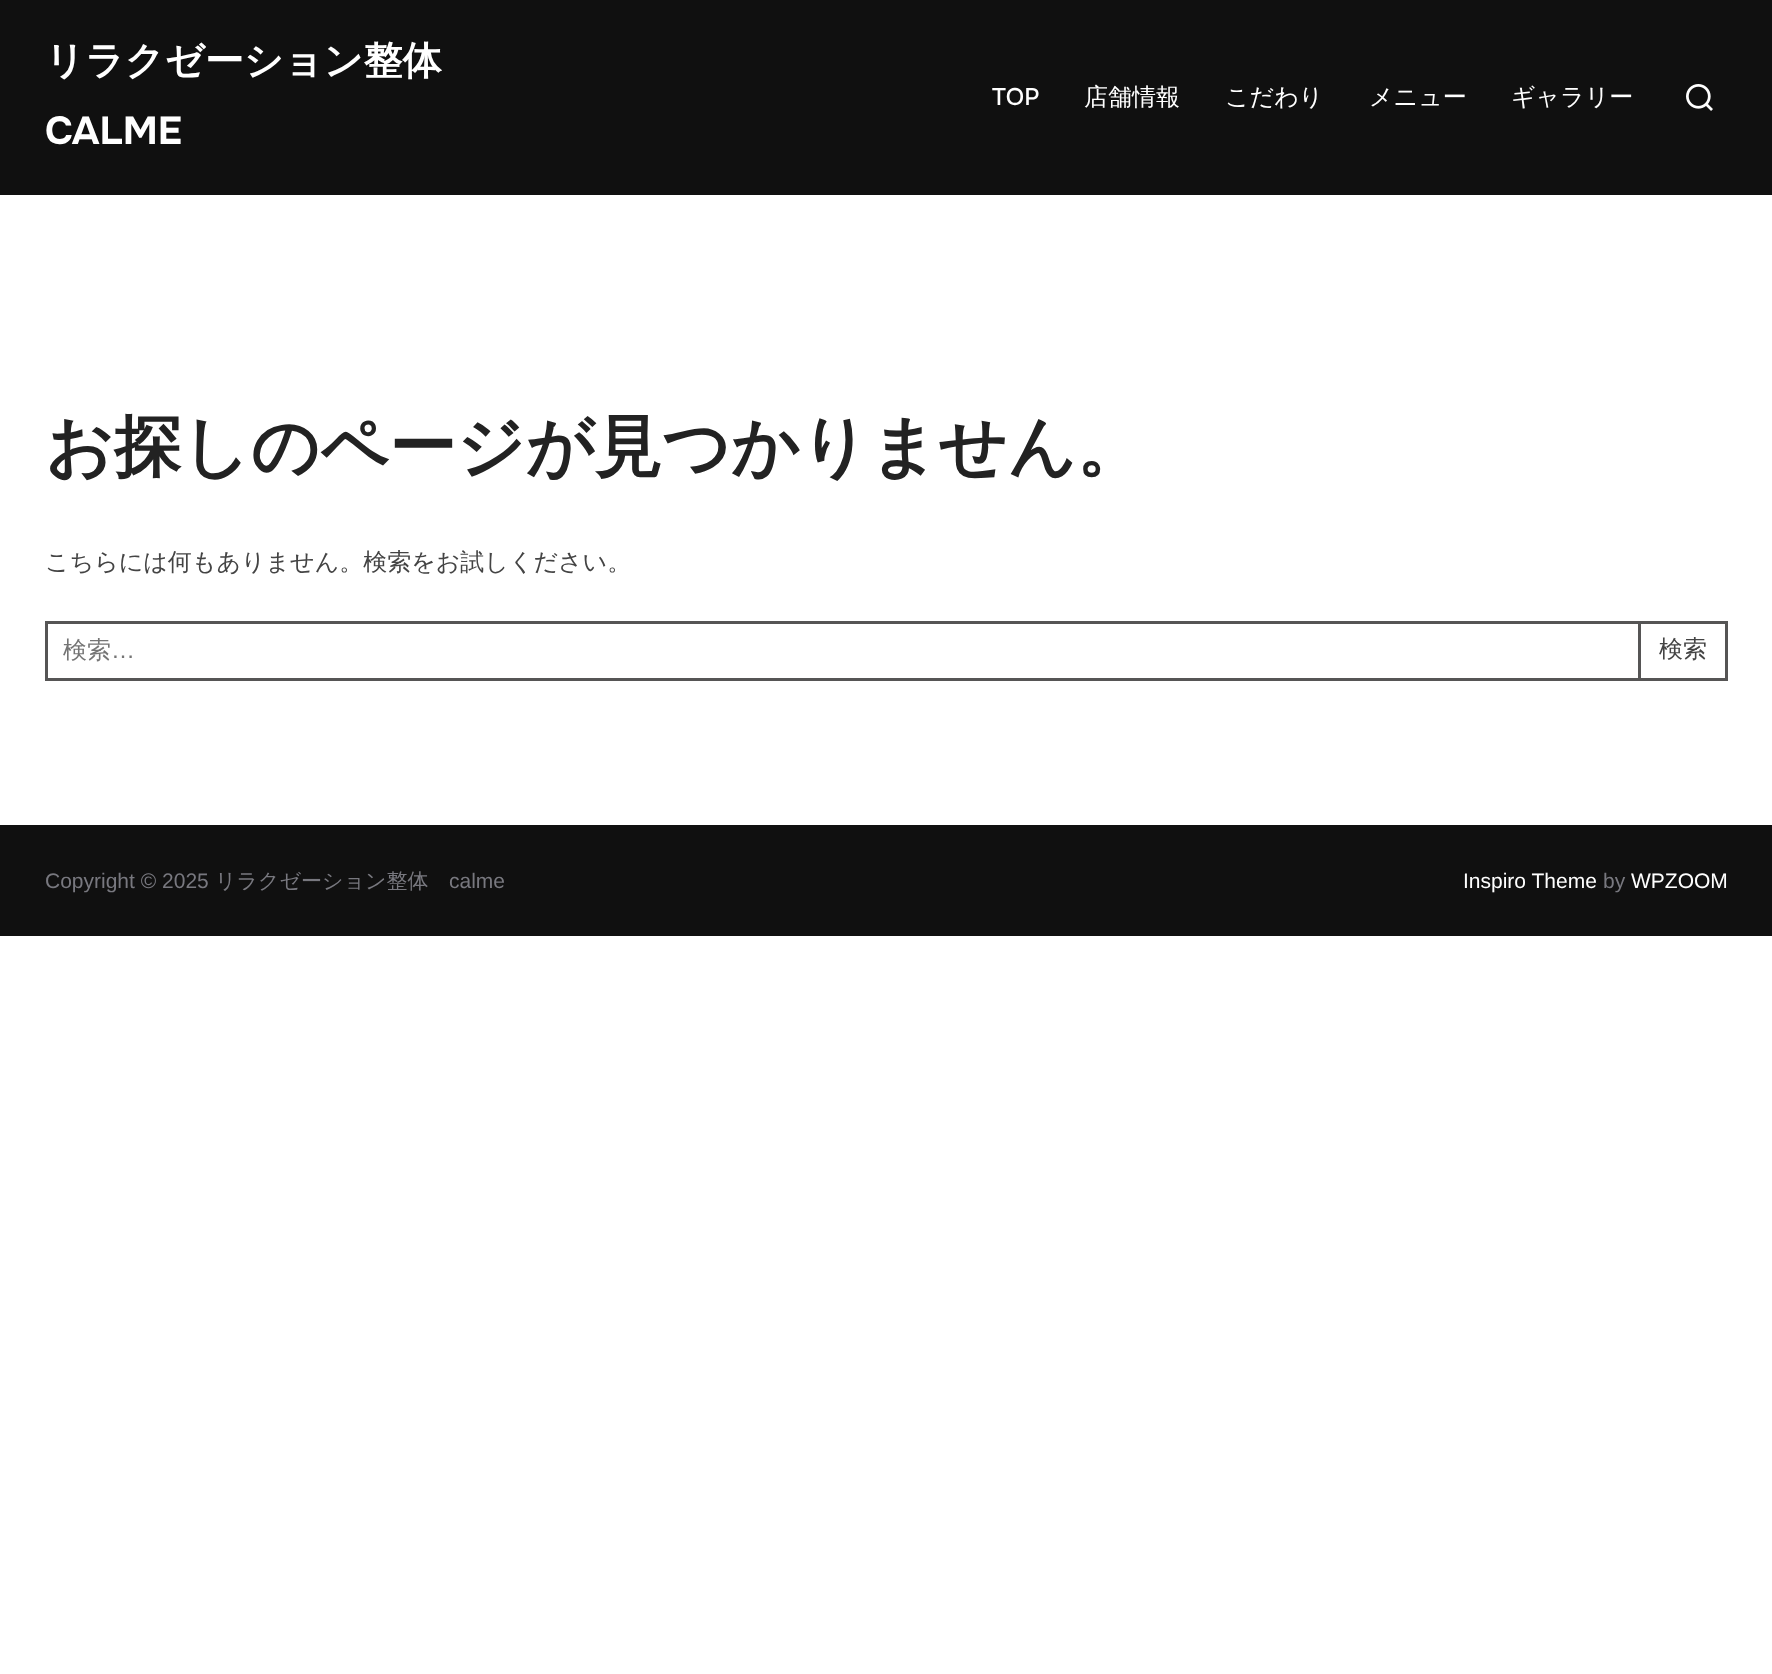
<?xml version="1.0" encoding="UTF-8"?>
<svg xmlns="http://www.w3.org/2000/svg" xmlns:xlink="http://www.w3.org/1999/xlink" width="1772" height="1674">
  <rect width="100%" height="100%" fill="#ffffff" />
  <rect width="1772" height="195" fill="#101010" />
  <image x="1686" y="84" width="27" height="27" xlink:href="image1.png" />
  <rect x="46.5" y="622.5" width="1680" height="57" fill="none" stroke="#565555" stroke-width="3" />
  <rect x="1639.5" y="622.5" width="87" height="57" fill="none" stroke="#565555" stroke-width="3" />
  <rect y="825" width="1772" height="111" fill="#101010" />
  <text x="45" y="74" style="font-family: WenQuanYi Zen Hei; font-size: 39px; font-weight: bold; fill: #ffffff">リラクゼーション整体</text>
  <text x="45" y="144" style="font-family: Onest; font-size: 39px; font-weight: bold; fill: #ffffff">CALME</text>
  <text x="992" y="105" style="font-family: Onest; font-size: 24px; font-weight: 500; fill: #ffffff">TOP</text>
  <text x="1084" y="105" style="font-family: WenQuanYi Zen Hei; font-size: 24px; font-weight: 500; fill: #ffffff">店舗情報</text>
  <text x="1225" y="105" style="font-family: WenQuanYi Zen Hei; font-size: 24px; font-weight: 500; fill: #ffffff">こだわり</text>
  <text x="1369" y="105" style="font-family: WenQuanYi Zen Hei; font-size: 24px; font-weight: 500; fill: #ffffff">メニュー</text>
  <text x="1511" y="105" style="font-family: WenQuanYi Zen Hei; font-size: 24px; font-weight: 500; fill: #ffffff">ギャラリー</text>
  <text x="45" y="470" style="font-family: WenQuanYi Zen Hei; font-size: 67.5px; font-weight: bold; fill: #222222">お探しのページが見つかりません。</text>
  <text x="45" y="570" style="font-family: WenQuanYi Zen Hei; font-size: 24px; font-weight: 500; fill: #444444">こちらには何もありません。検索をお試しください。</text>
  <text x="63" y="658" style="font-family: WenQuanYi Zen Hei; font-size: 24px; font-weight: 500; fill: #757575">検索</text>
  <text x="111" y="658" style="font-family: Liberation Sans; font-size: 24px; fill: #757575">…</text>
  <text x="1659" y="657" style="font-family: WenQuanYi Zen Hei; font-size: 24px; font-weight: 500; fill: #444444">検索</text>
  <text x="45" y="888" style="font-family: Liberation Sans; font-size: 21px; fill: #78787f">Copyright © 2025</text>
  <text x="215" y="888" style="font-family: WenQuanYi Zen Hei; font-size: 21px; font-weight: 500; fill: #78787f">リラクゼーション整体</text>
  <text x="449" y="888" style="font-family: Liberation Sans; font-size: 21px; fill: #78787f">calme</text>
  <text x="1463" y="888" style="font-family: Liberation Sans; font-size: 21px; fill: #ffffff">Inspiro Theme</text>
  <text x="1603" y="888" style="font-family: Liberation Sans; font-size: 21px; fill: #78787f">by</text>
  <text x="1631" y="888" style="font-family: Liberation Sans; font-size: 21px; fill: #ffffff">WPZOOM</text>
</svg>
